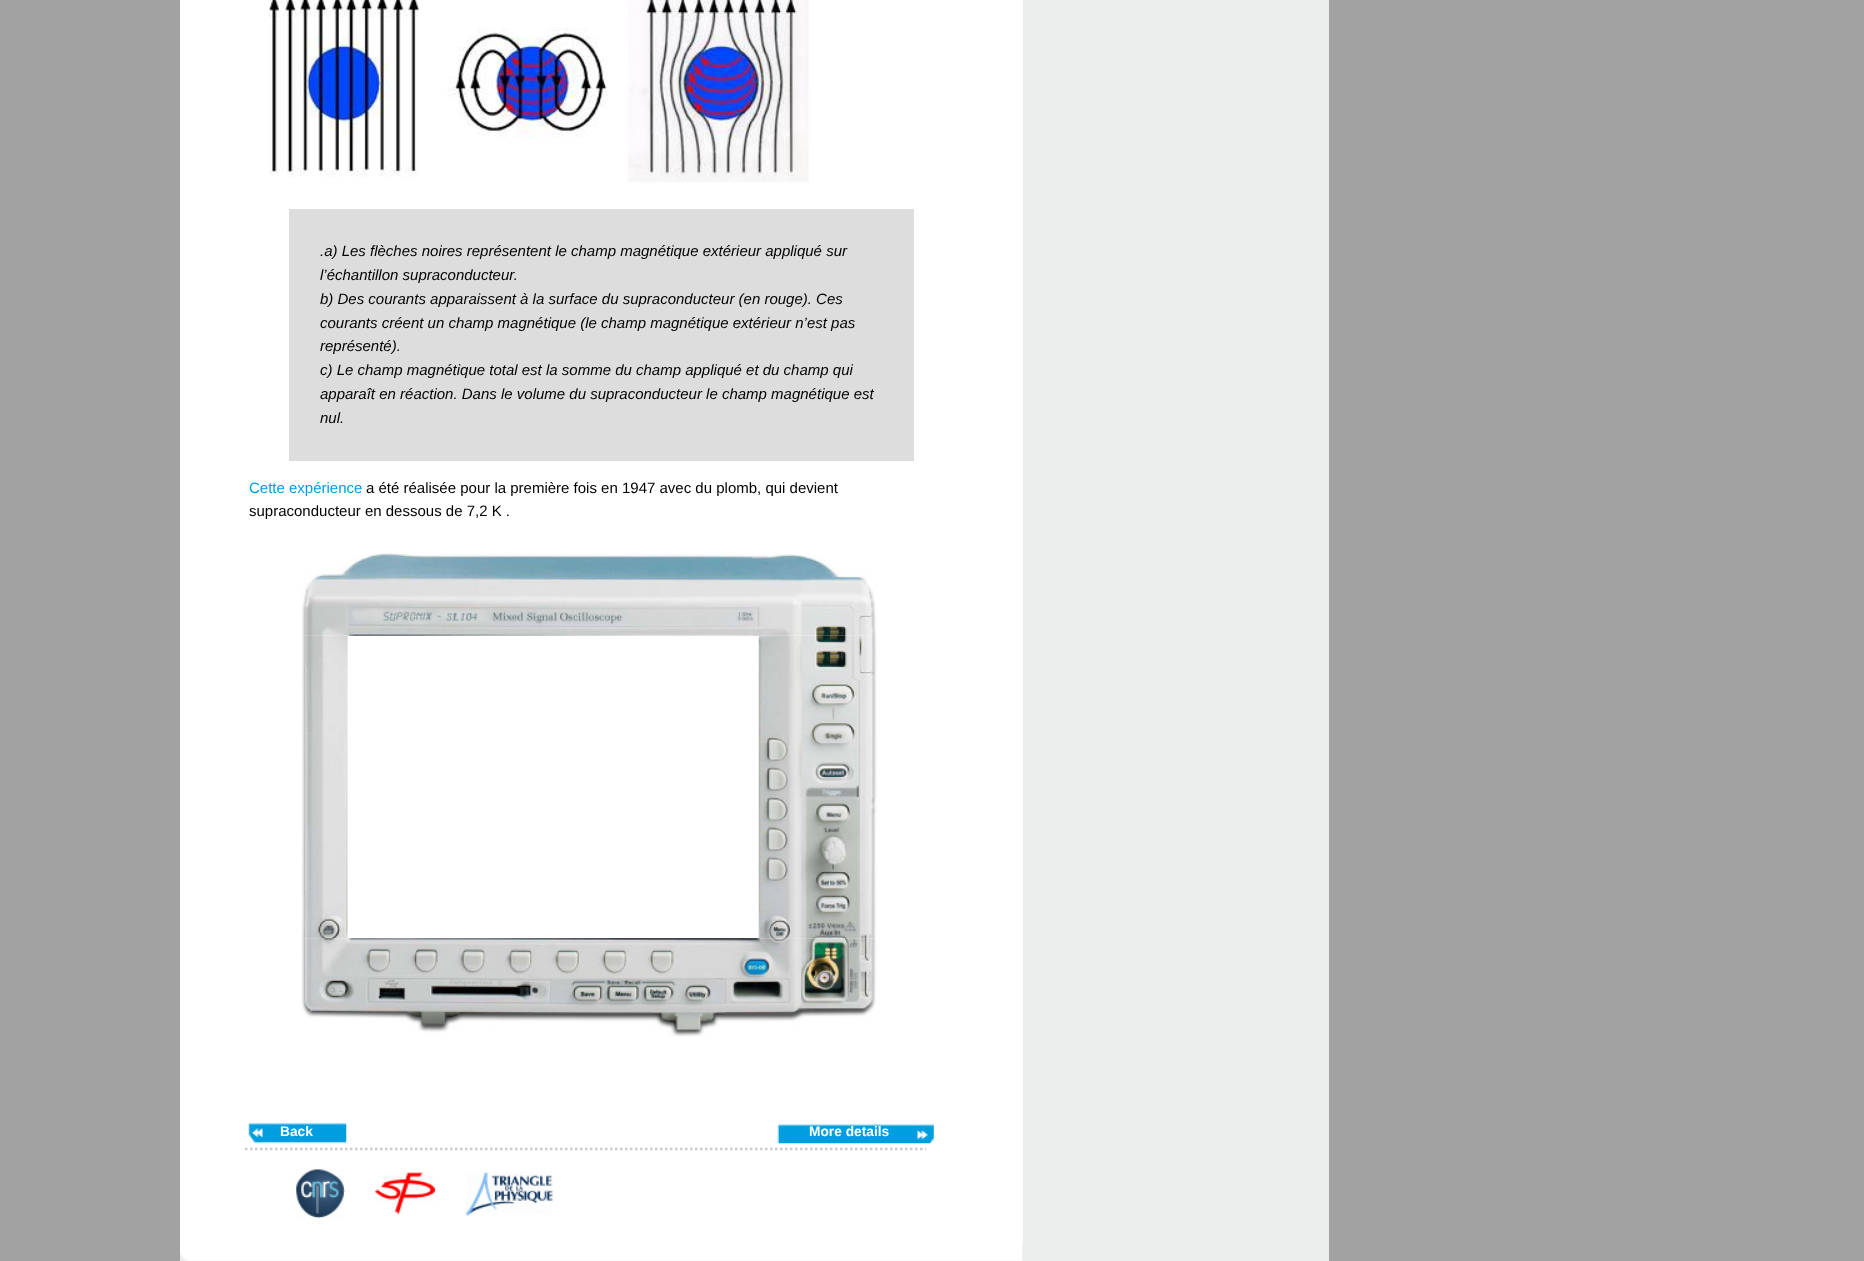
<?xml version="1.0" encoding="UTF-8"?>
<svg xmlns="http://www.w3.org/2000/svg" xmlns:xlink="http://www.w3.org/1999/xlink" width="1864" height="1261">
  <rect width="100%" height="100%" fill="#a2a2a2" />
  <rect x="180" width="1149" height="1261" fill="#eceded" />
  <image x="180" y="1244" width="843" height="17" xlink:href="image1.png" />
  <rect x="1022" y="1244" width="1" height="16" fill="#f0f2f2" />
  <rect x="180" width="843" height="1244" fill="#ffffff" />
  <image x="268" y="0" width="151" height="177" xlink:href="image2.png" />
  <image x="447" y="27" width="161" height="111" xlink:href="image3.png" />
  <image x="627" y="0" width="182" height="183" xlink:href="image4.png" />
  <rect x="289" y="209" width="625" height="252" fill="#dddddd" />
  <image x="301" y="553" width="576" height="484" xlink:href="image5.png" />
  <image x="248" y="1123" width="99" height="21" xlink:href="image6.png" />
  <image x="777" y="1123" width="157" height="21" xlink:href="image7.png" />
  <path d="M 245 1149 h 681" fill="none" stroke="#cccccc" stroke-width="2.5" stroke-dasharray="2.5 2.5" />
  <image x="295" y="1168" width="50" height="51" xlink:href="image8.png" />
  <image x="374" y="1172" width="62" height="43" xlink:href="image9.png" />
  <image x="465" y="1172" width="88" height="44" xlink:href="image10.png" />
  <text x="320" y="256" style="font-family: Liberation Sans; font-size: 15px; font-style: italic; fill: #000000">.a) Les flèches noires représentent le champ magnétique extérieur appliqué sur</text>
  <text x="320" y="280" style="font-family: Liberation Sans; font-size: 15px; font-style: italic; fill: #000000">l’échantillon supraconducteur.</text>
  <text x="320" y="304" style="font-family: Liberation Sans; font-size: 15px; font-style: italic; fill: #000000">b) Des courants apparaissent à la surface du supraconducteur (en rouge). Ces</text>
  <text x="320" y="328" style="font-family: Liberation Sans; font-size: 15px; font-style: italic; fill: #000000">courants créent un champ magnétique (le champ magnétique extérieur n’est pas</text>
  <text x="320" y="351" style="font-family: Liberation Sans; font-size: 15px; font-style: italic; fill: #000000">représenté).</text>
  <text x="320" y="375" style="font-family: Liberation Sans; font-size: 15px; font-style: italic; fill: #000000">c) Le champ magnétique total est la somme du champ appliqué et du champ qui</text>
  <text x="320" y="399" style="font-family: Liberation Sans; font-size: 15px; font-style: italic; fill: #000000">apparaît en réaction. Dans le volume du supraconducteur le champ magnétique est</text>
  <text x="320" y="423" style="font-family: Liberation Sans; font-size: 15px; font-style: italic; fill: #000000">nul.</text>
  <text x="249" y="493" style="font-family: Liberation Sans; font-size: 15px; fill: #009ee0">Cette expérience</text>
  <text x="366" y="493" style="font-family: Liberation Sans; font-size: 15px; fill: #000000">a été réalisée pour la première fois en 1947 avec du plomb, qui devient</text>
  <text x="249" y="516" style="font-family: Liberation Sans; font-size: 15px; fill: #000000">supraconducteur en dessous de 7,2 K .</text>
  <text x="280" y="1136" style="font-family: Liberation Sans; font-size: 13.75px; font-weight: bold; fill: #ffffff">Back</text>
  <text x="809" y="1136" style="font-family: Liberation Sans; font-size: 13.75px; font-weight: bold; fill: #ffffff">More details</text>
</svg>
